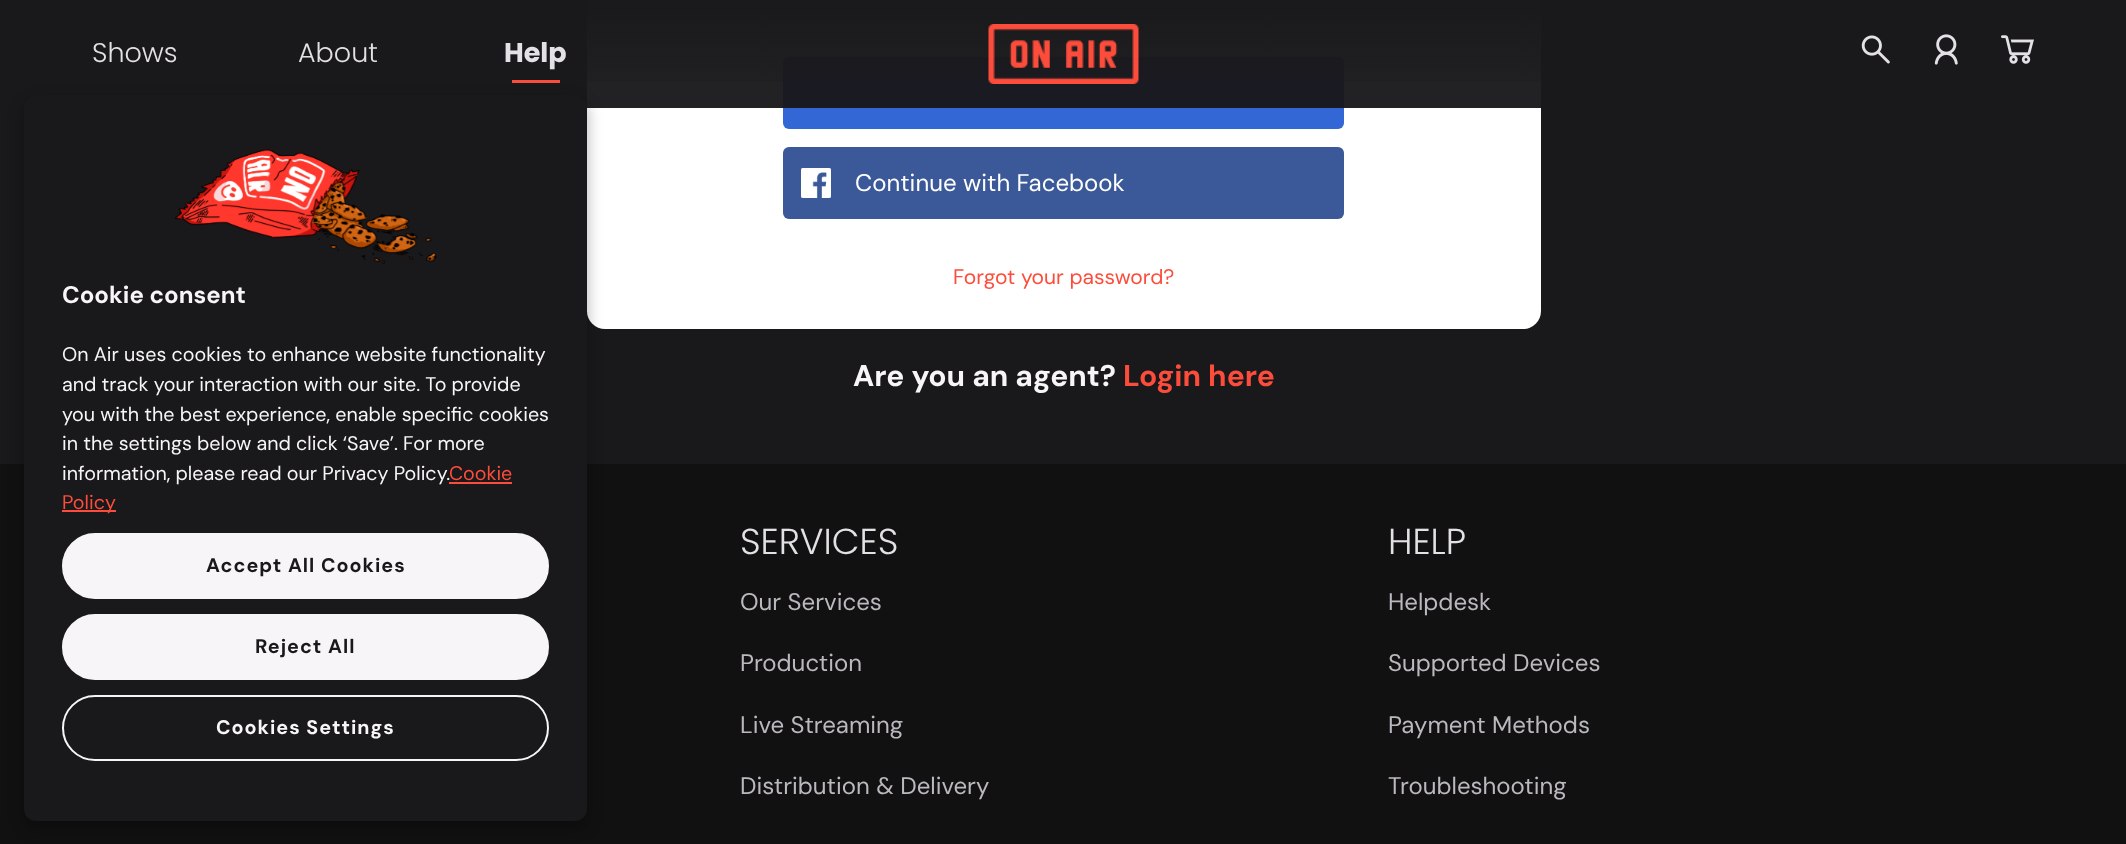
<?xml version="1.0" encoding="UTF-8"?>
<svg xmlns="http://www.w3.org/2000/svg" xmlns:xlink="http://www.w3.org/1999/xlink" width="2126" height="844">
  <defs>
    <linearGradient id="g1" gradientUnits="userSpaceOnUse" x1="1064" y1="0" x2="1064" y2="108"><stop offset="0" stop-color="#19181a" /><stop offset="1" stop-color="#19181a" stop-opacity="0" /></linearGradient>
  </defs>
  <rect width="100%" height="100%" fill="#19181a" />
  <rect x="587" y="-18" width="954" height="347" rx="18" fill="#ffffff" />
  <rect x="635" y="3" width="858" height="2" fill="#f7f7f7" />
  <rect x="986" y="3" width="156" height="2" fill="#ffffff" />
  <rect x="783" y="57" width="561" height="72" rx="6" fill="#3367d6" />
  <rect x="587" y="1" width="954" height="107" fill="#19181a" fill-opacity="0.96" />
  <rect x="587" width="954" height="82" fill="url(#g1)" />
  <rect x="512" y="80" width="48" height="3" fill="#fc4d3c" />
  <image x="988" y="24" width="151" height="60" xlink:href="image1.png" />
  <image x="1861" y="35" width="29" height="29" xlink:href="image2.png" />
  <image x="1934" y="34" width="24" height="31" xlink:href="image3.png" />
  <image x="2001" y="35" width="33" height="29" xlink:href="image4.png" />
  <rect y="464" width="2126" height="380" fill="#121112" />
  <rect x="24" y="102" width="563" height="726" rx="12" fill="#000000" fill-opacity="0.3" filter="blur(7.5px)" />
  <rect x="24" y="95" width="563" height="726" rx="12" fill="#19181a" />
  <image x="175" y="149" width="262" height="115" xlink:href="image5.png" />
  <rect x="449" y="482" width="63" height="2" fill="#fc4d3c" />
  <rect x="62" y="510" width="54" height="2" fill="#fc4d3c" />
  <rect x="63" y="534" width="485" height="64" rx="32" fill="#f7f5f8" stroke="#f7f5f8" stroke-width="2" />
  <rect x="63" y="615" width="485" height="64" rx="32" fill="#f7f5f8" stroke="#f7f5f8" stroke-width="2" />
  <rect x="63" y="696" width="485" height="64" rx="32" fill="none" stroke="#f7f5f8" stroke-width="2" />
  <rect x="783" y="147" width="561" height="72" rx="6" fill="#3b5998" />
  <image x="801" y="168" width="30" height="30" xlink:href="image6.png" />
  <text x="92" y="62" style="font-family: Poppins; font-size: 27px; font-weight: 300; fill: #e3e1e5">Shows</text>
  <text x="298" y="62" style="font-family: Poppins; font-size: 27px; font-weight: 300; fill: #e3e1e5">About</text>
  <text x="504" y="62" style="font-family: Poppins; font-size: 27px; font-weight: bold; fill: #e3e1e5">Help</text>
  <text x="62" y="303" style="font-family: DM Sans; font-size: 24px; font-weight: bold; fill: #f7f5f8">Cookie consent</text>
  <text x="62" y="361" style="font-family: DM Sans; font-size: 19.7px; fill: #f7f5f8">On Air uses cookies to enhance website functionality</text>
  <text x="62" y="391" style="font-family: DM Sans; font-size: 19.7px; fill: #f7f5f8">and track your interaction with our site. To provide</text>
  <text x="62" y="421" style="font-family: DM Sans; font-size: 19.7px; fill: #f7f5f8">you with the best experience, enable specific cookies</text>
  <text x="62" y="450" style="font-family: DM Sans; font-size: 19.7px; fill: #f7f5f8">in the settings below and click ‘Save’. For more</text>
  <text x="62" y="480" style="font-family: DM Sans; font-size: 19.7px; fill: #f7f5f8">information, please read our Privacy Policy.</text>
  <text x="449" y="480" style="font-family: DM Sans; font-size: 19.7px; fill: #fc4d3c">Cookie</text>
  <text x="62" y="509" style="font-family: DM Sans; font-size: 19.7px; fill: #fc4d3c">Policy</text>
  <text x="206" y="572" style="font-family: DM Sans; font-size: 19.7px; font-weight: bold; letter-spacing: 1px; fill: #19181a">Accept All Cookies</text>
  <text x="255" y="653" style="font-family: DM Sans; font-size: 19.7px; font-weight: bold; letter-spacing: 1px; fill: #19181a">Reject All</text>
  <text x="216" y="734" style="font-family: DM Sans; font-size: 19.7px; font-weight: bold; letter-spacing: 1px; fill: #f7f5f8">Cookies Settings</text>
  <text x="855" y="191" style="font-family: DM Sans; font-size: 24px; fill: #ffffff">Continue with Facebook</text>
  <text x="953" y="284" style="font-family: DM Sans; font-size: 21px; fill: #fc4d3c">Forgot your password?</text>
  <text x="853" y="386" style="font-family: DM Sans; font-size: 30px; font-weight: bold; fill: #f7f5f8">Are you an agent?</text>
  <text x="1123" y="386" style="font-family: DM Sans; font-size: 30px; font-weight: bold; fill: #fc4d3c">Login here</text>
  <text x="740" y="554" style="font-family: Poppins; font-size: 36px; font-weight: 300; fill: #e3e1e5">SERVICES</text>
  <text x="740" y="610" style="font-family: DM Sans; font-size: 24px; fill: #bcb8bf">Our Services</text>
  <text x="740" y="671" style="font-family: DM Sans; font-size: 24px; fill: #bcb8bf">Production</text>
  <text x="740" y="733" style="font-family: DM Sans; font-size: 24px; fill: #bcb8bf">Live Streaming</text>
  <text x="740" y="794" style="font-family: DM Sans; font-size: 24px; fill: #bcb8bf">Distribution &amp; Delivery</text>
  <text x="1388" y="554" style="font-family: Poppins; font-size: 36px; font-weight: 300; fill: #e3e1e5">HELP</text>
  <text x="1388" y="610" style="font-family: DM Sans; font-size: 24px; fill: #bcb8bf">Helpdesk</text>
  <text x="1388" y="671" style="font-family: DM Sans; font-size: 24px; fill: #bcb8bf">Supported Devices</text>
  <text x="1388" y="733" style="font-family: DM Sans; font-size: 24px; fill: #bcb8bf">Payment Methods</text>
  <text x="1388" y="794" style="font-family: DM Sans; font-size: 24px; fill: #bcb8bf">Troubleshooting</text>
</svg>
